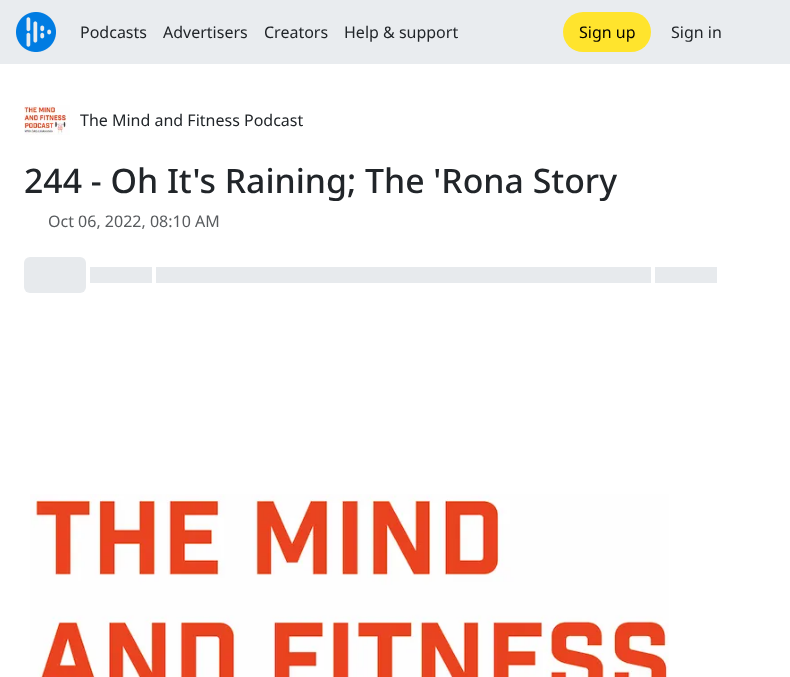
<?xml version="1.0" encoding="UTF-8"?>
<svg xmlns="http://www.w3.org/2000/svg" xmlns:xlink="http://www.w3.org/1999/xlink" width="790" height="677">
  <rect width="100%" height="100%" fill="#ffffff" />
  <rect width="790" height="64" fill="#e9ecef" />
  <image x="16" y="12" width="40" height="40" xlink:href="image1.png" />
  <rect x="563" y="12" width="88" height="40" rx="20" fill="#ffe42d" />
  <image x="24" y="105" width="46" height="30" xlink:href="image2.png" />
  <rect x="24" y="257" width="62" height="36" rx="6" fill="#e7eaed" />
  <rect x="90" y="267" width="62" height="16" fill="#e7eaed" />
  <rect x="156" y="267" width="495" height="16" fill="#e7eaed" />
  <rect x="655" y="267" width="62" height="16" fill="#e7eaed" />
  <image x="30" y="494" width="639" height="183" xlink:href="image3.png" />
  <text x="80" y="38" style="font-family: Noto Sans; font-size: 16px; fill: #212529">Podcasts</text>
  <text x="163" y="38" style="font-family: Noto Sans; font-size: 16px; fill: #212529">Advertisers</text>
  <text x="264" y="38" style="font-family: Noto Sans; font-size: 16px; fill: #212529">Creators</text>
  <text x="344" y="38" style="font-family: Noto Sans; font-size: 16px; fill: #212529">Help &amp; support</text>
  <text x="579" y="38" style="font-family: Noto Sans; font-size: 16px; fill: #000000">Sign up</text>
  <text x="671" y="38" style="font-family: Noto Sans; font-size: 16px; fill: #212529">Sign in</text>
  <text x="80" y="126" style="font-family: Noto Sans; font-size: 16px; fill: #212529">The Mind and Fitness Podcast</text>
  <text x="24" y="193" style="font-family: Noto Sans; font-size: 33.8px; font-weight: 500; fill: #212529">244 - Oh It's Raining; The 'Rona Story</text>
  <text x="48" y="227" style="font-family: Noto Sans; font-size: 16px; fill: #595c5f">Oct 06, 2022, 08:10 AM</text>
</svg>
